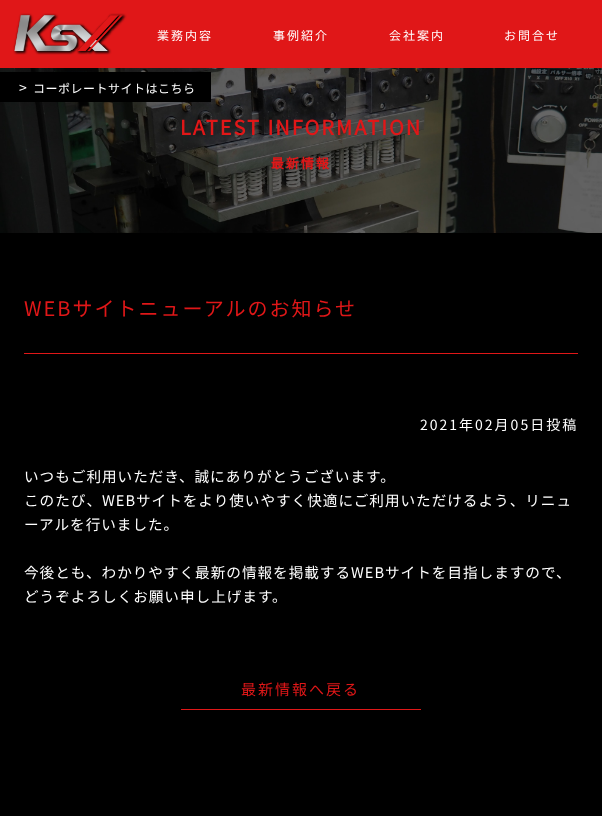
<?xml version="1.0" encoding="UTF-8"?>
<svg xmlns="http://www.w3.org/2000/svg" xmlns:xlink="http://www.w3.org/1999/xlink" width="602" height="816">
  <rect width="100%" height="100%" fill="#000000" />
  <rect width="602" height="68" fill="#e01718" />
  <image x="13" y="13" width="114" height="42" xlink:href="image1.png" />
  <image x="0" y="68" width="602" height="165" xlink:href="image2.png" />
  <rect y="72" width="211" height="30" fill="#000000" />
  <image x="271" y="156" width="58" height="14" xlink:href="image3.png" />
  <rect x="24" y="353" width="554" height="1" fill="#e01718" />
  <rect x="181" y="709" width="240" height="1" fill="#e01718" />
  <text x="157" y="40" style="font-family: Noto Sans JP; font-size: 12px; font-weight: 100; letter-spacing: 2px; fill: #ffffff">業務内容</text>
  <text x="273" y="40" style="font-family: Noto Sans JP; font-size: 12px; font-weight: 100; letter-spacing: 2px; fill: #ffffff">事例紹介</text>
  <text x="389" y="40" style="font-family: Noto Sans JP; font-size: 12px; font-weight: 100; letter-spacing: 2px; fill: #ffffff">会社案内</text>
  <text x="504" y="40" style="font-family: Noto Sans JP; font-size: 12px; font-weight: 100; letter-spacing: 2px; fill: #ffffff">お問合せ</text>
  <text x="19" y="93" style="font-family: Noto Sans JP; font-size: 14px; font-weight: 100; letter-spacing: -3px; fill: #ffffff">&gt;</text>
  <text x="33" y="93" style="font-family: Noto Sans JP; font-size: 12px; font-weight: 100; letter-spacing: 0.5px; fill: #ffffff">コーポレートサイトはこちら</text>
  <text x="180" y="135" style="font-family: Noto Sans JP; font-size: 20px; font-weight: bold; letter-spacing: 2px; fill: #e01718">LATEST INFORMATION</text>
  <text x="24" y="316" style="font-family: Noto Sans JP; font-size: 20px; font-weight: 100; letter-spacing: 2px; fill: #e01718">WEBサイトニューアルのお知らせ</text>
  <text x="420" y="430" style="font-family: Noto Sans JP; font-size: 14px; font-weight: 100; letter-spacing: 2px; fill: #ffffff">2021年02月05日投稿</text>
  <text x="24" y="482" style="font-family: Noto Sans JP; font-size: 14.6px; font-weight: 100; letter-spacing: 1px; fill: #ffffff">いつもご利用いただき、誠にありがとうございます。</text>
  <text x="24" y="506" style="font-family: Noto Sans JP; font-size: 14.6px; font-weight: 100; letter-spacing: 1px; fill: #ffffff">このたび、WEBサイトをより使いやすく快適にご利用いただけるよう、リニュ</text>
  <text x="24" y="530" style="font-family: Noto Sans JP; font-size: 14.6px; font-weight: 100; letter-spacing: 1px; fill: #ffffff">ーアルを行いました。</text>
  <text x="24" y="578" style="font-family: Noto Sans JP; font-size: 14.6px; font-weight: 100; letter-spacing: 1px; fill: #ffffff">今後とも、わかりやすく最新の情報を掲載するWEBサイトを目指しますので、</text>
  <text x="24" y="602" style="font-family: Noto Sans JP; font-size: 14.6px; font-weight: 100; letter-spacing: 1px; fill: #ffffff">どうぞよろしくお願い申し上げます。</text>
  <text x="241" y="695" style="font-family: Noto Sans JP; font-size: 15px; font-weight: 100; letter-spacing: 2px; fill: #e01718">最新情報へ戻る</text>
</svg>
